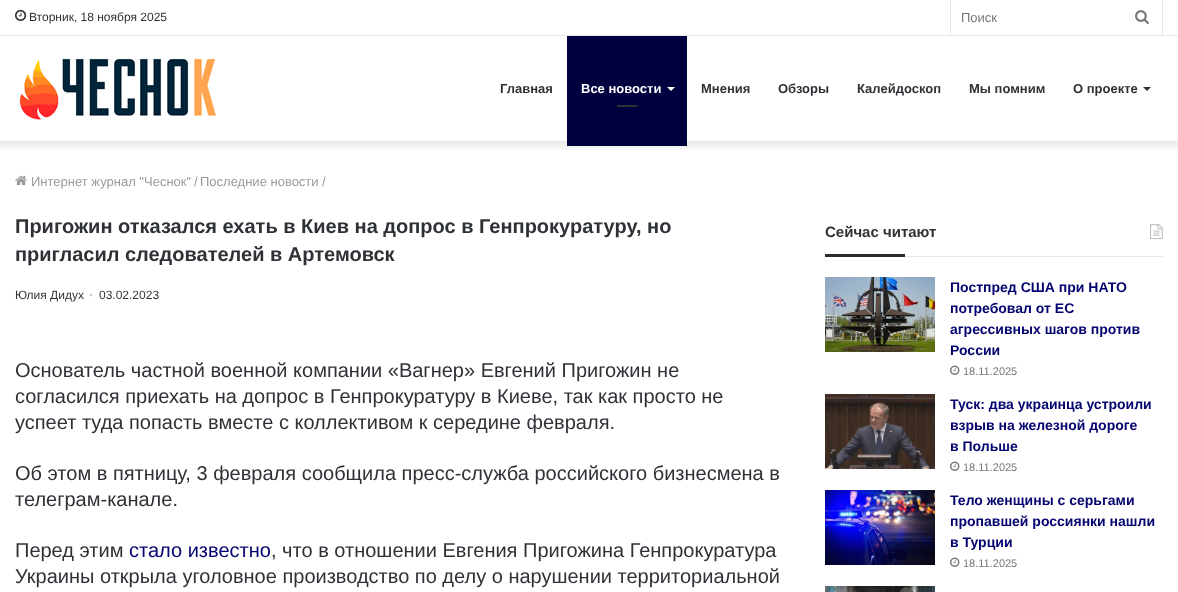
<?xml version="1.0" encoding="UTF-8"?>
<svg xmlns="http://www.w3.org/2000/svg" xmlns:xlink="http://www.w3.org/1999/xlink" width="1178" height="592">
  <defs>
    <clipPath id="clip1"><rect x="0" y="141" width="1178" height="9" /></clipPath>
  </defs>
  <rect width="100%" height="100%" fill="#ffffff" />
  <g clip-path="url(#clip1)">
    <rect x="-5" y="-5" width="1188" height="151" fill="#000000" fill-opacity="0.1" filter="blur(5px)" />
  </g>
  <rect y="35" width="1178" height="1" fill="#e6e6e6" />
  <image x="15" y="9" width="12" height="12" xlink:href="image1.png" />
  <rect x="1162" width="1" height="35" fill="#e6e6e6" />
  <rect x="950" width="1" height="35" fill="#e6e6e6" />
  <image x="1135" y="10" width="14" height="14" xlink:href="image2.png" />
  <image x="19" y="58" width="197" height="62" xlink:href="image3.png" />
  <rect x="567" y="36" width="120" height="110" fill="#00003e" />
  <path d="M 667 87 h 8 l -4 4 z" fill="#ffffff" />
  <rect x="617" y="105" width="20" height="2" fill="#2c2f34" />
  <path d="M 1143 87 h 8 l -4 4 z" fill="#2c2f34" />
  <image x="15" y="175" width="12" height="11" xlink:href="image4.png" />
  <rect x="905" y="256" width="258" height="1" fill="#e6e6e6" />
  <image x="1150" y="224" width="13" height="16" xlink:href="image5.png" />
  <rect x="825" y="254" width="80" height="3" fill="#292b2f" />
  <image x="825" y="277" width="110" height="75" xlink:href="image6.png" />
  <image x="950" y="365" width="10" height="10" xlink:href="image7.png" />
  <image x="825" y="394" width="110" height="75" xlink:href="image8.png" />
  <image x="950" y="461" width="10" height="10" xlink:href="image7.png" />
  <image x="825" y="490" width="110" height="75" xlink:href="image9.png" />
  <image x="950" y="557" width="10" height="10" xlink:href="image7.png" />
  <image x="825" y="586" width="110" height="6" xlink:href="image10.png" />
  <text x="29" y="21" style="font-family: Liberation Sans; font-size: 12px; fill: #2e3136">Вторник, 18 ноября 2025</text>
  <text x="961" y="22" style="font-family: Liberation Sans; font-size: 13px; fill: #777777">Поиск</text>
  <text x="500" y="93" style="font-family: Liberation Sans; font-size: 13px; font-weight: bold; fill: #2e3136">Главная</text>
  <text x="581" y="93" style="font-family: Liberation Sans; font-size: 13px; font-weight: bold; fill: #ffffff">Все новости</text>
  <text x="701" y="93" style="font-family: Liberation Sans; font-size: 13px; font-weight: bold; fill: #2e3136">Мнения</text>
  <text x="778" y="93" style="font-family: Liberation Sans; font-size: 13px; font-weight: bold; fill: #2e3136">Обзоры</text>
  <text x="857" y="93" style="font-family: Liberation Sans; font-size: 13px; font-weight: bold; fill: #2e3136">Калейдоскоп</text>
  <text x="969" y="93" style="font-family: Liberation Sans; font-size: 13px; font-weight: bold; fill: #2e3136">Мы помним</text>
  <text x="1073" y="93" style="font-family: Liberation Sans; font-size: 13px; font-weight: bold; fill: #2e3136">О проекте</text>
  <text x="31" y="186" style="font-family: Liberation Sans; font-size: 13px; fill: #9a9a9a">Интернет журнал "Чеснок"</text>
  <text x="194" y="186" style="font-family: Liberation Sans; font-size: 13px; fill: #9a9a9a">/</text>
  <text x="200" y="186" style="font-family: Liberation Sans; font-size: 13px; fill: #9a9a9a">Последние новости</text>
  <text x="322" y="186" style="font-family: Liberation Sans; font-size: 13px; fill: #9a9a9a">/</text>
  <text x="15" y="233" style="font-family: Liberation Sans; font-size: 20px; font-weight: bold; fill: #2e3136">Пригожин отказался ехать в Киев на допрос в Генпрокуратуру, но</text>
  <text x="15" y="261" style="font-family: Liberation Sans; font-size: 20px; font-weight: bold; fill: #2e3136">пригласил следователей в Артемовск</text>
  <text x="15" y="299" style="font-family: Liberation Sans; font-size: 12px; fill: #353535">Юлия Дидух</text>
  <text x="89" y="299" style="font-family: Liberation Serif; font-size: 12px; fill: #cdcdcd">•</text>
  <text x="99" y="299" style="font-family: Liberation Sans; font-size: 12px; fill: #353535">03.02.2023</text>
  <text x="15" y="377" style="font-family: Liberation Sans; font-size: 20px; fill: #2e3136">Основатель частной военной компании «Вагнер» Евгений Пригожин не</text>
  <text x="15" y="403" style="font-family: Liberation Sans; font-size: 20px; fill: #2e3136">согласился приехать на допрос в Генпрокуратуру в Киеве, так как просто не</text>
  <text x="15" y="429" style="font-family: Liberation Sans; font-size: 20px; fill: #2e3136">успеет туда попасть вместе с коллективом к середине февраля.</text>
  <text x="15" y="480" style="font-family: Liberation Sans; font-size: 20px; fill: #2e3136">Об этом в пятницу, 3 февраля сообщила пресс-служба российского бизнесмена в</text>
  <text x="15" y="506" style="font-family: Liberation Sans; font-size: 20px; fill: #2e3136">телеграм-канале.</text>
  <text x="15" y="557" style="font-family: Liberation Sans; font-size: 20px; fill: #2e3136">Перед этим</text>
  <text x="129" y="557" style="font-family: Liberation Sans; font-size: 20px; fill: #03036f">стало известно</text>
  <text x="271" y="557" style="font-family: Liberation Sans; font-size: 20px; fill: #2e3136">, что в отношении Евгения Пригожина Генпрокуратура</text>
  <text x="15" y="583" style="font-family: Liberation Sans; font-size: 20px; fill: #2e3136">Украины открыла уголовное производство по делу о нарушении территориальной</text>
  <text x="825" y="237" style="font-family: Liberation Sans; font-size: 15px; font-weight: bold; fill: #2e3136">Сейчас читают</text>
  <text x="950" y="292" style="font-family: Liberation Sans; font-size: 14px; font-weight: bold; fill: #03036f">Постпред США при НАТО</text>
  <text x="950" y="313" style="font-family: Liberation Sans; font-size: 14px; font-weight: bold; fill: #03036f">потребовал от ЕС</text>
  <text x="950" y="334" style="font-family: Liberation Sans; font-size: 14px; font-weight: bold; fill: #03036f">агрессивных шагов против</text>
  <text x="950" y="355" style="font-family: Liberation Sans; font-size: 14px; font-weight: bold; fill: #03036f">России</text>
  <text x="963" y="375" style="font-family: Liberation Sans; font-size: 11px; fill: #777777">18.11.2025</text>
  <text x="950" y="409" style="font-family: Liberation Sans; font-size: 14px; font-weight: bold; fill: #03036f">Туск: два украинца устроили</text>
  <text x="950" y="430" style="font-family: Liberation Sans; font-size: 14px; font-weight: bold; fill: #03036f">взрыв на железной дороге</text>
  <text x="950" y="451" style="font-family: Liberation Sans; font-size: 14px; font-weight: bold; fill: #03036f">в Польше</text>
  <text x="963" y="471" style="font-family: Liberation Sans; font-size: 11px; fill: #777777">18.11.2025</text>
  <text x="950" y="505" style="font-family: Liberation Sans; font-size: 14px; font-weight: bold; fill: #03036f">Тело женщины с серьгами</text>
  <text x="950" y="526" style="font-family: Liberation Sans; font-size: 14px; font-weight: bold; fill: #03036f">пропавшей россиянки нашли</text>
  <text x="950" y="547" style="font-family: Liberation Sans; font-size: 14px; font-weight: bold; fill: #03036f">в Турции</text>
  <text x="963" y="567" style="font-family: Liberation Sans; font-size: 11px; fill: #777777">18.11.2025</text>
</svg>
